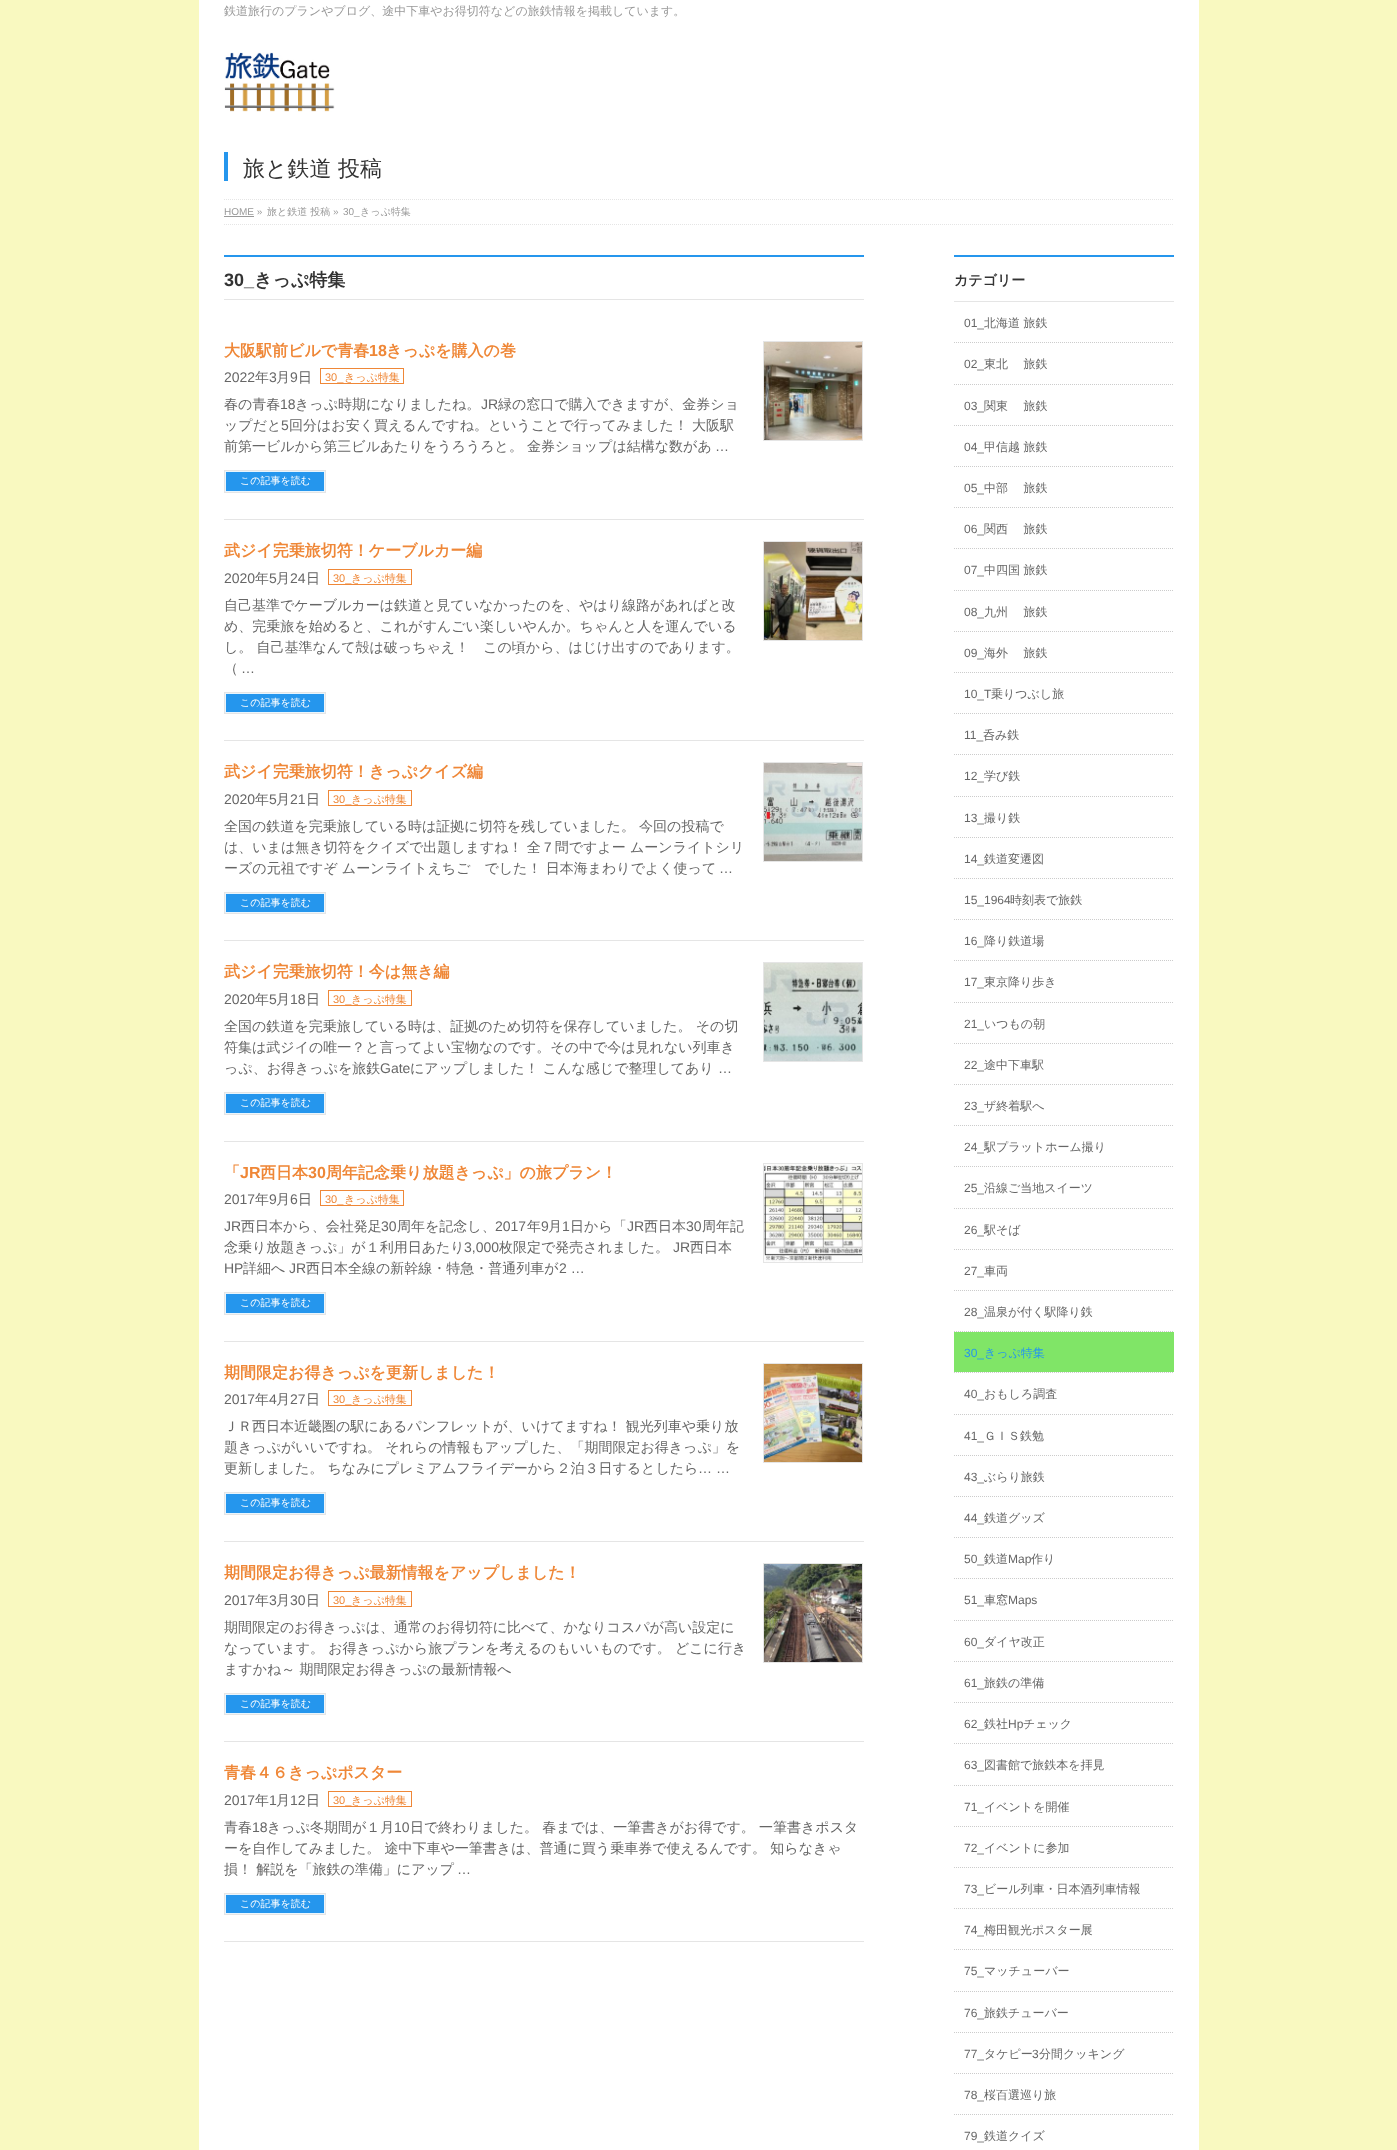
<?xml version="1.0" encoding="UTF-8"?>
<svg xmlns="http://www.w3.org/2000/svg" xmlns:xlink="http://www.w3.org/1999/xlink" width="1397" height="2150">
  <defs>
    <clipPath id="clip1"><rect x="321" y="369" width="82" height="14" /></clipPath>
    <clipPath id="clip2"><rect x="329" y="570" width="82" height="14" /></clipPath>
    <clipPath id="clip3"><rect x="329" y="791" width="82" height="14" /></clipPath>
    <clipPath id="clip4"><rect x="329" y="991" width="82" height="14" /></clipPath>
    <clipPath id="clip5"><rect x="321" y="1191" width="82" height="14" /></clipPath>
    <clipPath id="clip6"><rect x="329" y="1391" width="82" height="14" /></clipPath>
    <clipPath id="clip7"><rect x="329" y="1592" width="82" height="14" /></clipPath>
    <clipPath id="clip8"><rect x="329" y="1792" width="82" height="14" /></clipPath>
  </defs>
  <rect width="100%" height="100%" fill="#f9f9c0" />
  <rect x="199" width="1000" height="132" fill="#ffffff" />
  <image x="224" y="52" width="111" height="60" xlink:href="image1.png" />
  <rect x="199" y="132" width="1000" height="67" fill="#ffffff" />
  <rect x="224" y="152" width="4" height="29" fill="#2596ed" />
  <rect x="199" y="199" width="1000" height="1951" fill="#ffffff" />
  <path d="M 224 199.5 h 950" fill="none" stroke="#e5e5e5" stroke-dasharray="1 1" />
  <path d="M 224 224.5 h 950" fill="none" stroke="#e5e5e5" stroke-dasharray="1 1" />
  <rect x="224" y="216" width="30" height="1" fill="#999999" />
  <rect x="224" y="255" width="640" height="2" fill="#2596ed" />
  <rect x="224" y="299" width="640" height="1" fill="#e5e5e5" />
  <rect x="224" y="519" width="640" height="1" fill="#e5e5e5" />
  <rect x="320.5" y="368.5" width="83" height="15" fill="none" stroke="#ef8737" />
  <rect x="225.5" y="471.5" width="99" height="20" fill="#2596ed" stroke="#e9f5fd" />
  <rect x="224.5" y="470.5" width="101" height="22" fill="none" stroke="#e5e5e5" />
  <rect x="763.5" y="341.5" width="99" height="99" fill="none" stroke="#e5e5e5" />
  <image x="764" y="342" width="98" height="98" xlink:href="image2.png" />
  <rect x="224" y="740" width="640" height="1" fill="#e5e5e5" />
  <rect x="328.5" y="569.5" width="83" height="15" fill="none" stroke="#ef8737" />
  <rect x="225.5" y="693.5" width="99" height="19" fill="#2596ed" stroke="#e9f5fd" />
  <rect x="224.5" y="692.5" width="101" height="21" fill="none" stroke="#e5e5e5" />
  <rect x="763.5" y="541.5" width="99" height="99" fill="none" stroke="#e5e5e5" />
  <image x="764" y="542" width="98" height="98" xlink:href="image3.png" />
  <rect x="224" y="940" width="640" height="1" fill="#e5e5e5" />
  <rect x="328.5" y="790.5" width="83" height="15" fill="none" stroke="#ef8737" />
  <rect x="225.5" y="893.5" width="99" height="19" fill="#2596ed" stroke="#e9f5fd" />
  <rect x="224.5" y="892.5" width="101" height="21" fill="none" stroke="#e5e5e5" />
  <rect x="763.5" y="762.5" width="99" height="99" fill="none" stroke="#e5e5e5" />
  <image x="764" y="763" width="98" height="98" xlink:href="image4.png" />
  <rect x="224" y="1141" width="640" height="1" fill="#e5e5e5" />
  <rect x="328.5" y="990.5" width="83" height="15" fill="none" stroke="#ef8737" />
  <rect x="225.5" y="1093.5" width="99" height="20" fill="#2596ed" stroke="#e9f5fd" />
  <rect x="224.5" y="1092.5" width="101" height="22" fill="none" stroke="#e5e5e5" />
  <rect x="763.5" y="962.5" width="99" height="99" fill="none" stroke="#e5e5e5" />
  <image x="764" y="963" width="98" height="98" xlink:href="image5.png" />
  <rect x="224" y="1341" width="640" height="1" fill="#e5e5e5" />
  <rect x="320.5" y="1190.5" width="83" height="15" fill="none" stroke="#ef8737" />
  <rect x="225.5" y="1293.5" width="99" height="20" fill="#2596ed" stroke="#e9f5fd" />
  <rect x="224.5" y="1292.5" width="101" height="22" fill="none" stroke="#e5e5e5" />
  <rect x="763.5" y="1163.5" width="99" height="99" fill="none" stroke="#e5e5e5" />
  <image x="764" y="1164" width="98" height="98" xlink:href="image6.png" />
  <rect x="224" y="1541" width="640" height="1" fill="#e5e5e5" />
  <rect x="328.5" y="1390.5" width="83" height="15" fill="none" stroke="#ef8737" />
  <rect x="225.5" y="1493.5" width="99" height="20" fill="#2596ed" stroke="#e9f5fd" />
  <rect x="224.5" y="1492.5" width="101" height="22" fill="none" stroke="#e5e5e5" />
  <rect x="763.5" y="1363.5" width="99" height="99" fill="none" stroke="#e5e5e5" />
  <image x="764" y="1364" width="98" height="98" xlink:href="image7.png" />
  <rect x="224" y="1741" width="640" height="1" fill="#e5e5e5" />
  <rect x="328.5" y="1591.5" width="83" height="15" fill="none" stroke="#ef8737" />
  <rect x="225.5" y="1694.5" width="99" height="19" fill="#2596ed" stroke="#e9f5fd" />
  <rect x="224.5" y="1693.5" width="101" height="21" fill="none" stroke="#e5e5e5" />
  <rect x="763.5" y="1563.5" width="99" height="99" fill="none" stroke="#e5e5e5" />
  <image x="764" y="1564" width="98" height="98" xlink:href="image8.png" />
  <rect x="224" y="1941" width="640" height="1" fill="#e5e5e5" />
  <rect x="328.5" y="1791.5" width="83" height="15" fill="none" stroke="#ef8737" />
  <rect x="225.5" y="1894.5" width="99" height="19" fill="#2596ed" stroke="#e9f5fd" />
  <rect x="224.5" y="1893.5" width="101" height="21" fill="none" stroke="#e5e5e5" />
  <rect x="954" y="255" width="220" height="2" fill="#2596ed" />
  <rect x="954" y="301" width="220" height="1" fill="#e5e5e5" />
  <path d="M 954 342.5 h 220" fill="none" stroke="#cccccc" stroke-dasharray="1 1" />
  <path d="M 954 384.5 h 220" fill="none" stroke="#cccccc" stroke-dasharray="1 1" />
  <path d="M 954 425.5 h 220" fill="none" stroke="#cccccc" stroke-dasharray="1 1" />
  <path d="M 954 466.5 h 220" fill="none" stroke="#cccccc" stroke-dasharray="1 1" />
  <path d="M 954 507.5 h 220" fill="none" stroke="#cccccc" stroke-dasharray="1 1" />
  <path d="M 954 548.5 h 220" fill="none" stroke="#cccccc" stroke-dasharray="1 1" />
  <path d="M 954 590.5 h 220" fill="none" stroke="#cccccc" stroke-dasharray="1 1" />
  <path d="M 954 631.5 h 220" fill="none" stroke="#cccccc" stroke-dasharray="1 1" />
  <path d="M 954 672.5 h 220" fill="none" stroke="#cccccc" stroke-dasharray="1 1" />
  <path d="M 954 713.5 h 220" fill="none" stroke="#cccccc" stroke-dasharray="1 1" />
  <path d="M 954 754.5 h 220" fill="none" stroke="#cccccc" stroke-dasharray="1 1" />
  <path d="M 954 796.5 h 220" fill="none" stroke="#cccccc" stroke-dasharray="1 1" />
  <path d="M 954 837.5 h 220" fill="none" stroke="#cccccc" stroke-dasharray="1 1" />
  <path d="M 954 878.5 h 220" fill="none" stroke="#cccccc" stroke-dasharray="1 1" />
  <path d="M 954 919.5 h 220" fill="none" stroke="#cccccc" stroke-dasharray="1 1" />
  <path d="M 954 960.5 h 220" fill="none" stroke="#cccccc" stroke-dasharray="1 1" />
  <path d="M 954 1002.5 h 220" fill="none" stroke="#cccccc" stroke-dasharray="1 1" />
  <path d="M 954 1043.5 h 220" fill="none" stroke="#cccccc" stroke-dasharray="1 1" />
  <path d="M 954 1084.5 h 220" fill="none" stroke="#cccccc" stroke-dasharray="1 1" />
  <path d="M 954 1125.5 h 220" fill="none" stroke="#cccccc" stroke-dasharray="1 1" />
  <path d="M 954 1166.5 h 220" fill="none" stroke="#cccccc" stroke-dasharray="1 1" />
  <path d="M 954 1208.5 h 220" fill="none" stroke="#cccccc" stroke-dasharray="1 1" />
  <path d="M 954 1249.5 h 220" fill="none" stroke="#cccccc" stroke-dasharray="1 1" />
  <path d="M 954 1290.5 h 220" fill="none" stroke="#cccccc" stroke-dasharray="1 1" />
  <path d="M 954 1331.5 h 220" fill="none" stroke="#cccccc" stroke-dasharray="1 1" />
  <path d="M 954 1372.5 h 220" fill="none" stroke="#cccccc" stroke-dasharray="1 1" />
  <rect x="954" y="1332" width="220" height="40" fill="#80e567" />
  <path d="M 954 1414.5 h 220" fill="none" stroke="#cccccc" stroke-dasharray="1 1" />
  <path d="M 954 1455.5 h 220" fill="none" stroke="#cccccc" stroke-dasharray="1 1" />
  <path d="M 954 1496.5 h 220" fill="none" stroke="#cccccc" stroke-dasharray="1 1" />
  <path d="M 954 1537.5 h 220" fill="none" stroke="#cccccc" stroke-dasharray="1 1" />
  <path d="M 954 1578.5 h 220" fill="none" stroke="#cccccc" stroke-dasharray="1 1" />
  <path d="M 954 1620.5 h 220" fill="none" stroke="#cccccc" stroke-dasharray="1 1" />
  <path d="M 954 1661.5 h 220" fill="none" stroke="#cccccc" stroke-dasharray="1 1" />
  <path d="M 954 1702.5 h 220" fill="none" stroke="#cccccc" stroke-dasharray="1 1" />
  <path d="M 954 1743.5 h 220" fill="none" stroke="#cccccc" stroke-dasharray="1 1" />
  <path d="M 954 1785.5 h 220" fill="none" stroke="#cccccc" stroke-dasharray="1 1" />
  <path d="M 954 1826.5 h 220" fill="none" stroke="#cccccc" stroke-dasharray="1 1" />
  <path d="M 954 1867.5 h 220" fill="none" stroke="#cccccc" stroke-dasharray="1 1" />
  <path d="M 954 1908.5 h 220" fill="none" stroke="#cccccc" stroke-dasharray="1 1" />
  <path d="M 954 1949.5 h 220" fill="none" stroke="#cccccc" stroke-dasharray="1 1" />
  <path d="M 954 1991.5 h 220" fill="none" stroke="#cccccc" stroke-dasharray="1 1" />
  <path d="M 954 2032.5 h 220" fill="none" stroke="#cccccc" stroke-dasharray="1 1" />
  <path d="M 954 2073.5 h 220" fill="none" stroke="#cccccc" stroke-dasharray="1 1" />
  <path d="M 954 2114.5 h 220" fill="none" stroke="#cccccc" stroke-dasharray="1 1" />
  <text x="224" y="15" style="font-family: WenQuanYi Zen Hei; font-size: 12px; font-weight: 500; fill: #999999">鉄道旅行のプランやブログ、途中下車やお得切符などの旅鉄情報を掲載しています。</text>
  <text x="243" y="176" style="font-family: WenQuanYi Zen Hei; font-size: 22px; font-weight: 500; fill: #333333">旅と鉄道 投稿</text>
  <text x="224" y="215" style="font-family: Liberation Sans; font-size: 10px; fill: #999999">HOME »</text>
  <text x="267" y="215" style="font-family: WenQuanYi Zen Hei; font-size: 10px; font-weight: 500; fill: #999999">旅と鉄道 投稿</text>
  <text x="333" y="215" style="font-family: Liberation Sans; font-size: 10px; fill: #999999">»</text>
  <text x="343" y="215" style="font-family: Liberation Sans; font-size: 10px; fill: #999999">30_</text>
  <text x="360" y="215" style="font-family: WenQuanYi Zen Hei; font-size: 10px; font-weight: 500; fill: #999999">きっぷ特集</text>
  <text x="224" y="286" style="font-family: Liberation Sans; font-size: 18px; font-weight: bold; fill: #333333">30_</text>
  <text x="254" y="286" style="font-family: WenQuanYi Zen Hei; font-size: 18px; font-weight: bold; fill: #333333">きっぷ特集</text>
  <text x="224" y="356" style="font-family: WenQuanYi Zen Hei; font-size: 16px; font-weight: bold; fill: #ef8737">大阪駅前ビルで青春</text>
  <text x="369" y="356" style="font-family: Liberation Sans; font-size: 16px; font-weight: bold; fill: #ef8737">18</text>
  <text x="386" y="356" style="font-family: WenQuanYi Zen Hei; font-size: 16px; font-weight: bold; fill: #ef8737">きっぷを購入の巻</text>
  <text x="224" y="382" style="font-family: Liberation Sans; font-size: 14px; fill: #666666">2022</text>
  <text x="255" y="382" style="font-family: WenQuanYi Zen Hei; font-size: 14px; font-weight: 500; fill: #666666">年</text>
  <text x="269" y="382" style="font-family: Liberation Sans; font-size: 14px; fill: #666666">3</text>
  <text x="276" y="382" style="font-family: WenQuanYi Zen Hei; font-size: 14px; font-weight: 500; fill: #666666">月</text>
  <text x="290" y="382" style="font-family: Liberation Sans; font-size: 14px; fill: #666666">9</text>
  <text x="298" y="382" style="font-family: WenQuanYi Zen Hei; font-size: 14px; font-weight: 500; fill: #666666">日</text>
  <g clip-path="url(#clip1)">
    <text x="325" y="381" style="font-family: Liberation Sans; font-size: 11px; fill: #ef8737">30_</text>
  </g>
  <text x="344" y="381" style="font-family: WenQuanYi Zen Hei; font-size: 11px; font-weight: 500; fill: #ef8737">きっぷ特集</text>
  <text x="224" y="409" style="font-family: WenQuanYi Zen Hei; font-size: 14px; font-weight: 500; fill: #666666">春の青春</text>
  <text x="280" y="409" style="font-family: Liberation Sans; font-size: 14px; fill: #666666">18</text>
  <text x="295" y="409" style="font-family: WenQuanYi Zen Hei; font-size: 14px; font-weight: 500; fill: #666666">きっぷ時期になりましたね。</text>
  <text x="481" y="409" style="font-family: Liberation Sans; font-size: 14px; fill: #666666">JR</text>
  <text x="498" y="409" style="font-family: WenQuanYi Zen Hei; font-size: 14px; font-weight: 500; fill: #666666">緑の窓口で購入できますが、金券ショ</text>
  <text x="224" y="430" style="font-family: WenQuanYi Zen Hei; font-size: 14px; font-weight: 500; fill: #666666">ップだと</text>
  <text x="281" y="430" style="font-family: Liberation Sans; font-size: 14px; fill: #666666">5</text>
  <text x="289" y="430" style="font-family: WenQuanYi Zen Hei; font-size: 14px; font-weight: 500; fill: #666666">回分はお安く買えるんですね。ということで行ってみました！ 大阪駅</text>
  <text x="224" y="451" style="font-family: WenQuanYi Zen Hei; font-size: 14px; font-weight: 500; fill: #666666">前第一ビルから第三ビルあたりをうろうろと。 金券ショップは結構な数があ</text>
  <text x="715" y="451" style="font-family: Liberation Sans; font-size: 14px; fill: #666666">…</text>
  <text x="240" y="484" style="font-family: WenQuanYi Zen Hei; font-size: 10px; font-weight: 500; fill: #ffffff">この記事を読む</text>
  <text x="224" y="556" style="font-family: WenQuanYi Zen Hei; font-size: 16px; font-weight: bold; fill: #ef8737">武ジイ完乗旅切符！ケーブルカー編</text>
  <text x="224" y="583" style="font-family: Liberation Sans; font-size: 14px; fill: #666666">2020</text>
  <text x="255" y="583" style="font-family: WenQuanYi Zen Hei; font-size: 14px; font-weight: 500; fill: #666666">年</text>
  <text x="269" y="583" style="font-family: Liberation Sans; font-size: 14px; fill: #666666">5</text>
  <text x="276" y="583" style="font-family: WenQuanYi Zen Hei; font-size: 14px; font-weight: 500; fill: #666666">月</text>
  <text x="290" y="583" style="font-family: Liberation Sans; font-size: 14px; fill: #666666">24</text>
  <text x="306" y="583" style="font-family: WenQuanYi Zen Hei; font-size: 14px; font-weight: 500; fill: #666666">日</text>
  <g clip-path="url(#clip2)">
    <text x="333" y="582" style="font-family: Liberation Sans; font-size: 11px; fill: #ef8737">30_</text>
  </g>
  <text x="351" y="582" style="font-family: WenQuanYi Zen Hei; font-size: 11px; font-weight: 500; fill: #ef8737">きっぷ特集</text>
  <text x="224" y="610" style="font-family: WenQuanYi Zen Hei; font-size: 14px; font-weight: 500; fill: #666666">自己基準でケーブルカーは鉄道と見ていなかったのを、やはり線路があればと改</text>
  <text x="224" y="631" style="font-family: WenQuanYi Zen Hei; font-size: 14px; font-weight: 500; fill: #666666">め、完乗旅を始めると、これがすんごい楽しいやんか。ちゃんと人を運んでいる</text>
  <text x="224" y="652" style="font-family: WenQuanYi Zen Hei; font-size: 14px; font-weight: 500; fill: #666666">し。 自己基準なんて殻は破っちゃえ！　この頃から、はじけ出すのであります。</text>
  <text x="224" y="673" style="font-family: WenQuanYi Zen Hei; font-size: 14px; font-weight: 500; fill: #666666">（</text>
  <text x="241" y="673" style="font-family: Liberation Sans; font-size: 14px; fill: #666666">…</text>
  <text x="240" y="706" style="font-family: WenQuanYi Zen Hei; font-size: 10px; font-weight: 500; fill: #ffffff">この記事を読む</text>
  <text x="224" y="777" style="font-family: WenQuanYi Zen Hei; font-size: 16px; font-weight: bold; fill: #ef8737">武ジイ完乗旅切符！きっぷクイズ編</text>
  <text x="224" y="804" style="font-family: Liberation Sans; font-size: 14px; fill: #666666">2020</text>
  <text x="255" y="804" style="font-family: WenQuanYi Zen Hei; font-size: 14px; font-weight: 500; fill: #666666">年</text>
  <text x="269" y="804" style="font-family: Liberation Sans; font-size: 14px; fill: #666666">5</text>
  <text x="276" y="804" style="font-family: WenQuanYi Zen Hei; font-size: 14px; font-weight: 500; fill: #666666">月</text>
  <text x="290" y="804" style="font-family: Liberation Sans; font-size: 14px; fill: #666666">21</text>
  <text x="306" y="804" style="font-family: WenQuanYi Zen Hei; font-size: 14px; font-weight: 500; fill: #666666">日</text>
  <g clip-path="url(#clip3)">
    <text x="333" y="803" style="font-family: Liberation Sans; font-size: 11px; fill: #ef8737">30_</text>
  </g>
  <text x="351" y="803" style="font-family: WenQuanYi Zen Hei; font-size: 11px; font-weight: 500; fill: #ef8737">きっぷ特集</text>
  <text x="224" y="831" style="font-family: WenQuanYi Zen Hei; font-size: 14px; font-weight: 500; fill: #666666">全国の鉄道を完乗旅している時は証拠に切符を残していました。 今回の投稿で</text>
  <text x="224" y="852" style="font-family: WenQuanYi Zen Hei; font-size: 14px; font-weight: 500; fill: #666666">は、いまは無き切符をクイズで出題しますね！ 全７問ですよー ムーンライトシリ</text>
  <text x="224" y="873" style="font-family: WenQuanYi Zen Hei; font-size: 14px; font-weight: 500; fill: #666666">ーズの元祖ですぞ ムーンライトえちご　でした！ 日本海まわりでよく使って</text>
  <text x="719" y="873" style="font-family: Liberation Sans; font-size: 14px; fill: #666666">…</text>
  <text x="240" y="906" style="font-family: WenQuanYi Zen Hei; font-size: 10px; font-weight: 500; fill: #ffffff">この記事を読む</text>
  <text x="224" y="977" style="font-family: WenQuanYi Zen Hei; font-size: 16px; font-weight: bold; fill: #ef8737">武ジイ完乗旅切符！今は無き編</text>
  <text x="224" y="1004" style="font-family: Liberation Sans; font-size: 14px; fill: #666666">2020</text>
  <text x="255" y="1004" style="font-family: WenQuanYi Zen Hei; font-size: 14px; font-weight: 500; fill: #666666">年</text>
  <text x="269" y="1004" style="font-family: Liberation Sans; font-size: 14px; fill: #666666">5</text>
  <text x="276" y="1004" style="font-family: WenQuanYi Zen Hei; font-size: 14px; font-weight: 500; fill: #666666">月</text>
  <text x="290" y="1004" style="font-family: Liberation Sans; font-size: 14px; fill: #666666">18</text>
  <text x="306" y="1004" style="font-family: WenQuanYi Zen Hei; font-size: 14px; font-weight: 500; fill: #666666">日</text>
  <g clip-path="url(#clip4)">
    <text x="333" y="1003" style="font-family: Liberation Sans; font-size: 11px; fill: #ef8737">30_</text>
  </g>
  <text x="351" y="1003" style="font-family: WenQuanYi Zen Hei; font-size: 11px; font-weight: 500; fill: #ef8737">きっぷ特集</text>
  <text x="224" y="1031" style="font-family: WenQuanYi Zen Hei; font-size: 14px; font-weight: 500; fill: #666666">全国の鉄道を完乗旅している時は、証拠のため切符を保存していました。 その切</text>
  <text x="224" y="1052" style="font-family: WenQuanYi Zen Hei; font-size: 14px; font-weight: 500; fill: #666666">符集は武ジイの唯一？と言ってよい宝物なのです。その中で今は見れない列車き</text>
  <text x="224" y="1073" style="font-family: WenQuanYi Zen Hei; font-size: 14px; font-weight: 500; fill: #666666">っぷ、お得きっぷを旅鉄</text>
  <text x="380" y="1073" style="font-family: Liberation Sans; font-size: 14px; fill: #666666">Gate</text>
  <text x="410" y="1073" style="font-family: WenQuanYi Zen Hei; font-size: 14px; font-weight: 500; fill: #666666">にアップしました！ こんな感じで整理してあり</text>
  <text x="718" y="1073" style="font-family: Liberation Sans; font-size: 14px; fill: #666666">…</text>
  <text x="240" y="1106" style="font-family: WenQuanYi Zen Hei; font-size: 10px; font-weight: 500; fill: #ffffff">この記事を読む</text>
  <text x="224" y="1178" style="font-family: WenQuanYi Zen Hei; font-size: 16px; font-weight: bold; fill: #ef8737">「</text>
  <text x="240" y="1178" style="font-family: Liberation Sans; font-size: 16px; font-weight: bold; fill: #ef8737">JR</text>
  <text x="260" y="1178" style="font-family: WenQuanYi Zen Hei; font-size: 16px; font-weight: bold; fill: #ef8737">西日本</text>
  <text x="308" y="1178" style="font-family: Liberation Sans; font-size: 16px; font-weight: bold; fill: #ef8737">30</text>
  <text x="326" y="1178" style="font-family: WenQuanYi Zen Hei; font-size: 16px; font-weight: bold; fill: #ef8737">周年記念乗り放題きっぷ」の旅プラン！</text>
  <text x="224" y="1204" style="font-family: Liberation Sans; font-size: 14px; fill: #666666">2017</text>
  <text x="255" y="1204" style="font-family: WenQuanYi Zen Hei; font-size: 14px; font-weight: 500; fill: #666666">年</text>
  <text x="269" y="1204" style="font-family: Liberation Sans; font-size: 14px; fill: #666666">9</text>
  <text x="276" y="1204" style="font-family: WenQuanYi Zen Hei; font-size: 14px; font-weight: 500; fill: #666666">月</text>
  <text x="290" y="1204" style="font-family: Liberation Sans; font-size: 14px; fill: #666666">6</text>
  <text x="298" y="1204" style="font-family: WenQuanYi Zen Hei; font-size: 14px; font-weight: 500; fill: #666666">日</text>
  <g clip-path="url(#clip5)">
    <text x="325" y="1203" style="font-family: Liberation Sans; font-size: 11px; fill: #ef8737">30_</text>
  </g>
  <text x="344" y="1203" style="font-family: WenQuanYi Zen Hei; font-size: 11px; font-weight: 500; fill: #ef8737">きっぷ特集</text>
  <text x="224" y="1231" style="font-family: Liberation Sans; font-size: 14px; fill: #666666">JR</text>
  <text x="241" y="1231" style="font-family: WenQuanYi Zen Hei; font-size: 14px; font-weight: 500; fill: #666666">西日本から、会社発足</text>
  <text x="381" y="1231" style="font-family: Liberation Sans; font-size: 14px; fill: #666666">30</text>
  <text x="397" y="1231" style="font-family: WenQuanYi Zen Hei; font-size: 14px; font-weight: 500; fill: #666666">周年を記念し、</text>
  <text x="495" y="1231" style="font-family: Liberation Sans; font-size: 14px; fill: #666666">2017</text>
  <text x="527" y="1231" style="font-family: WenQuanYi Zen Hei; font-size: 14px; font-weight: 500; fill: #666666">年</text>
  <text x="541" y="1231" style="font-family: Liberation Sans; font-size: 14px; fill: #666666">9</text>
  <text x="548" y="1231" style="font-family: WenQuanYi Zen Hei; font-size: 14px; font-weight: 500; fill: #666666">月</text>
  <text x="562" y="1231" style="font-family: Liberation Sans; font-size: 14px; fill: #666666">1</text>
  <text x="570" y="1231" style="font-family: WenQuanYi Zen Hei; font-size: 14px; font-weight: 500; fill: #666666">日から「</text>
  <text x="627" y="1231" style="font-family: Liberation Sans; font-size: 14px; fill: #666666">JR</text>
  <text x="644" y="1231" style="font-family: WenQuanYi Zen Hei; font-size: 14px; font-weight: 500; fill: #666666">西日本</text>
  <text x="686" y="1231" style="font-family: Liberation Sans; font-size: 14px; fill: #666666">30</text>
  <text x="702" y="1231" style="font-family: WenQuanYi Zen Hei; font-size: 14px; font-weight: 500; fill: #666666">周年記</text>
  <text x="224" y="1252" style="font-family: WenQuanYi Zen Hei; font-size: 14px; font-weight: 500; fill: #666666">念乗り放題きっぷ」が１利用日あたり</text>
  <text x="464" y="1252" style="font-family: Liberation Sans; font-size: 14px; fill: #666666">3,000</text>
  <text x="499" y="1252" style="font-family: WenQuanYi Zen Hei; font-size: 14px; font-weight: 500; fill: #666666">枚限定で発売されました。</text>
  <text x="673" y="1252" style="font-family: Liberation Sans; font-size: 14px; fill: #666666">JR</text>
  <text x="690" y="1252" style="font-family: WenQuanYi Zen Hei; font-size: 14px; font-weight: 500; fill: #666666">西日本</text>
  <text x="224" y="1273" style="font-family: Liberation Sans; font-size: 14px; fill: #666666">HP</text>
  <text x="243" y="1273" style="font-family: WenQuanYi Zen Hei; font-size: 14px; font-weight: 500; fill: #666666">詳細へ</text>
  <text x="289" y="1273" style="font-family: Liberation Sans; font-size: 14px; fill: #666666">JR</text>
  <text x="306" y="1273" style="font-family: WenQuanYi Zen Hei; font-size: 14px; font-weight: 500; fill: #666666">西日本全線の新幹線・特急・普通列車が</text>
  <text x="559" y="1273" style="font-family: Liberation Sans; font-size: 14px; fill: #666666">2 …</text>
  <text x="240" y="1306" style="font-family: WenQuanYi Zen Hei; font-size: 10px; font-weight: 500; fill: #ffffff">この記事を読む</text>
  <text x="224" y="1378" style="font-family: WenQuanYi Zen Hei; font-size: 16px; font-weight: bold; fill: #ef8737">期間限定お得きっぷを更新しました！</text>
  <text x="224" y="1404" style="font-family: Liberation Sans; font-size: 14px; fill: #666666">2017</text>
  <text x="255" y="1404" style="font-family: WenQuanYi Zen Hei; font-size: 14px; font-weight: 500; fill: #666666">年</text>
  <text x="269" y="1404" style="font-family: Liberation Sans; font-size: 14px; fill: #666666">4</text>
  <text x="276" y="1404" style="font-family: WenQuanYi Zen Hei; font-size: 14px; font-weight: 500; fill: #666666">月</text>
  <text x="290" y="1404" style="font-family: Liberation Sans; font-size: 14px; fill: #666666">27</text>
  <text x="306" y="1404" style="font-family: WenQuanYi Zen Hei; font-size: 14px; font-weight: 500; fill: #666666">日</text>
  <g clip-path="url(#clip6)">
    <text x="333" y="1403" style="font-family: Liberation Sans; font-size: 11px; fill: #ef8737">30_</text>
  </g>
  <text x="351" y="1403" style="font-family: WenQuanYi Zen Hei; font-size: 11px; font-weight: 500; fill: #ef8737">きっぷ特集</text>
  <text x="224" y="1431" style="font-family: WenQuanYi Zen Hei; font-size: 14px; font-weight: 500; fill: #666666">ＪＲ西日本近畿圏の駅にあるパンフレットが、いけてますね！ 観光列車や乗り放</text>
  <text x="224" y="1452" style="font-family: WenQuanYi Zen Hei; font-size: 14px; font-weight: 500; fill: #666666">題きっぷがいいですね。 それらの情報もアップした、「期間限定お得きっぷ」を</text>
  <text x="224" y="1473" style="font-family: WenQuanYi Zen Hei; font-size: 14px; font-weight: 500; fill: #666666">更新しました。 ちなみにプレミアムフライデーから２泊３日するとしたら</text>
  <text x="698" y="1473" style="font-family: Liberation Sans; font-size: 14px; fill: #666666">… …</text>
  <text x="240" y="1506" style="font-family: WenQuanYi Zen Hei; font-size: 10px; font-weight: 500; fill: #ffffff">この記事を読む</text>
  <text x="224" y="1578" style="font-family: WenQuanYi Zen Hei; font-size: 16px; font-weight: bold; fill: #ef8737">期間限定お得きっぷ最新情報をアップしました！</text>
  <text x="224" y="1605" style="font-family: Liberation Sans; font-size: 14px; fill: #666666">2017</text>
  <text x="255" y="1605" style="font-family: WenQuanYi Zen Hei; font-size: 14px; font-weight: 500; fill: #666666">年</text>
  <text x="269" y="1605" style="font-family: Liberation Sans; font-size: 14px; fill: #666666">3</text>
  <text x="276" y="1605" style="font-family: WenQuanYi Zen Hei; font-size: 14px; font-weight: 500; fill: #666666">月</text>
  <text x="290" y="1605" style="font-family: Liberation Sans; font-size: 14px; fill: #666666">30</text>
  <text x="306" y="1605" style="font-family: WenQuanYi Zen Hei; font-size: 14px; font-weight: 500; fill: #666666">日</text>
  <g clip-path="url(#clip7)">
    <text x="333" y="1604" style="font-family: Liberation Sans; font-size: 11px; fill: #ef8737">30_</text>
  </g>
  <text x="351" y="1604" style="font-family: WenQuanYi Zen Hei; font-size: 11px; font-weight: 500; fill: #ef8737">きっぷ特集</text>
  <text x="224" y="1632" style="font-family: WenQuanYi Zen Hei; font-size: 14px; font-weight: 500; fill: #666666">期間限定のお得きっぷは、通常のお得切符に比べて、かなりコスパが高い設定に</text>
  <text x="224" y="1653" style="font-family: WenQuanYi Zen Hei; font-size: 14px; font-weight: 500; fill: #666666">なっています。 お得きっぷから旅プランを考えるのもいいものです。 どこに行き</text>
  <text x="224" y="1674" style="font-family: WenQuanYi Zen Hei; font-size: 14px; font-weight: 500; fill: #666666">ますかね～ 期間限定お得きっぷの最新情報へ</text>
  <text x="240" y="1707" style="font-family: WenQuanYi Zen Hei; font-size: 10px; font-weight: 500; fill: #ffffff">この記事を読む</text>
  <text x="224" y="1778" style="font-family: WenQuanYi Zen Hei; font-size: 16px; font-weight: bold; fill: #ef8737">青春４６きっぷポスター</text>
  <text x="224" y="1805" style="font-family: Liberation Sans; font-size: 14px; fill: #666666">2017</text>
  <text x="255" y="1805" style="font-family: WenQuanYi Zen Hei; font-size: 14px; font-weight: 500; fill: #666666">年</text>
  <text x="269" y="1805" style="font-family: Liberation Sans; font-size: 14px; fill: #666666">1</text>
  <text x="276" y="1805" style="font-family: WenQuanYi Zen Hei; font-size: 14px; font-weight: 500; fill: #666666">月</text>
  <text x="290" y="1805" style="font-family: Liberation Sans; font-size: 14px; fill: #666666">12</text>
  <text x="306" y="1805" style="font-family: WenQuanYi Zen Hei; font-size: 14px; font-weight: 500; fill: #666666">日</text>
  <g clip-path="url(#clip8)">
    <text x="333" y="1804" style="font-family: Liberation Sans; font-size: 11px; fill: #ef8737">30_</text>
  </g>
  <text x="351" y="1804" style="font-family: WenQuanYi Zen Hei; font-size: 11px; font-weight: 500; fill: #ef8737">きっぷ特集</text>
  <text x="224" y="1832" style="font-family: WenQuanYi Zen Hei; font-size: 14px; font-weight: 500; fill: #666666">青春</text>
  <text x="252" y="1832" style="font-family: Liberation Sans; font-size: 14px; fill: #666666">18</text>
  <text x="267" y="1832" style="font-family: WenQuanYi Zen Hei; font-size: 14px; font-weight: 500; fill: #666666">きっぷ冬期間が１月</text>
  <text x="394" y="1832" style="font-family: Liberation Sans; font-size: 14px; fill: #666666">10</text>
  <text x="410" y="1832" style="font-family: WenQuanYi Zen Hei; font-size: 14px; font-weight: 500; fill: #666666">日で終わりました。 春までは、一筆書きがお得です。 一筆書きポスタ</text>
  <text x="224" y="1853" style="font-family: WenQuanYi Zen Hei; font-size: 14px; font-weight: 500; fill: #666666">ーを自作してみました。 途中下車や一筆書きは、普通に買う乗車券で使えるんです。 知らなきゃ</text>
  <text x="224" y="1874" style="font-family: WenQuanYi Zen Hei; font-size: 14px; font-weight: 500; fill: #666666">損！ 解説を「旅鉄の準備」にアップ</text>
  <text x="457" y="1874" style="font-family: Liberation Sans; font-size: 14px; fill: #666666">…</text>
  <text x="240" y="1907" style="font-family: WenQuanYi Zen Hei; font-size: 10px; font-weight: 500; fill: #ffffff">この記事を読む</text>
  <text x="954" y="285" style="font-family: WenQuanYi Zen Hei; font-size: 14px; font-weight: bold; fill: #333333">カテゴリー</text>
  <text x="964" y="327" style="font-family: Liberation Sans; font-size: 12px; fill: #666666">01_</text>
  <text x="984" y="327" style="font-family: WenQuanYi Zen Hei; font-size: 12px; font-weight: 500; fill: #666666">北海道 旅鉄</text>
  <text x="964" y="368" style="font-family: Liberation Sans; font-size: 12px; fill: #666666">02_</text>
  <text x="984" y="368" style="font-family: WenQuanYi Zen Hei; font-size: 12px; font-weight: 500; fill: #666666">東北 　旅鉄</text>
  <text x="964" y="410" style="font-family: Liberation Sans; font-size: 12px; fill: #666666">03_</text>
  <text x="984" y="410" style="font-family: WenQuanYi Zen Hei; font-size: 12px; font-weight: 500; fill: #666666">関東 　旅鉄</text>
  <text x="964" y="451" style="font-family: Liberation Sans; font-size: 12px; fill: #666666">04_</text>
  <text x="984" y="451" style="font-family: WenQuanYi Zen Hei; font-size: 12px; font-weight: 500; fill: #666666">甲信越 旅鉄</text>
  <text x="964" y="492" style="font-family: Liberation Sans; font-size: 12px; fill: #666666">05_</text>
  <text x="984" y="492" style="font-family: WenQuanYi Zen Hei; font-size: 12px; font-weight: 500; fill: #666666">中部 　旅鉄</text>
  <text x="964" y="533" style="font-family: Liberation Sans; font-size: 12px; fill: #666666">06_</text>
  <text x="984" y="533" style="font-family: WenQuanYi Zen Hei; font-size: 12px; font-weight: 500; fill: #666666">関西 　旅鉄</text>
  <text x="964" y="574" style="font-family: Liberation Sans; font-size: 12px; fill: #666666">07_</text>
  <text x="984" y="574" style="font-family: WenQuanYi Zen Hei; font-size: 12px; font-weight: 500; fill: #666666">中四国 旅鉄</text>
  <text x="964" y="616" style="font-family: Liberation Sans; font-size: 12px; fill: #666666">08_</text>
  <text x="984" y="616" style="font-family: WenQuanYi Zen Hei; font-size: 12px; font-weight: 500; fill: #666666">九州 　旅鉄</text>
  <text x="964" y="657" style="font-family: Liberation Sans; font-size: 12px; fill: #666666">09_</text>
  <text x="984" y="657" style="font-family: WenQuanYi Zen Hei; font-size: 12px; font-weight: 500; fill: #666666">海外 　旅鉄</text>
  <text x="964" y="698" style="font-family: Liberation Sans; font-size: 12px; fill: #666666">10_T</text>
  <text x="991" y="698" style="font-family: WenQuanYi Zen Hei; font-size: 12px; font-weight: 500; fill: #666666">乗りつぶし旅</text>
  <text x="964" y="739" style="font-family: Liberation Sans; font-size: 12px; fill: #666666">11_</text>
  <text x="983" y="739" style="font-family: WenQuanYi Zen Hei; font-size: 12px; font-weight: 500; fill: #666666">呑み鉄</text>
  <text x="964" y="780" style="font-family: Liberation Sans; font-size: 12px; fill: #666666">12_</text>
  <text x="984" y="780" style="font-family: WenQuanYi Zen Hei; font-size: 12px; font-weight: 500; fill: #666666">学び鉄</text>
  <text x="964" y="822" style="font-family: Liberation Sans; font-size: 12px; fill: #666666">13_</text>
  <text x="984" y="822" style="font-family: WenQuanYi Zen Hei; font-size: 12px; font-weight: 500; fill: #666666">撮り鉄</text>
  <text x="964" y="863" style="font-family: Liberation Sans; font-size: 12px; fill: #666666">14_</text>
  <text x="984" y="863" style="font-family: WenQuanYi Zen Hei; font-size: 12px; font-weight: 500; fill: #666666">鉄道変遷図</text>
  <text x="964" y="904" style="font-family: Liberation Sans; font-size: 12px; fill: #666666">15_1964</text>
  <text x="1010" y="904" style="font-family: WenQuanYi Zen Hei; font-size: 12px; font-weight: 500; fill: #666666">時刻表で旅鉄</text>
  <text x="964" y="945" style="font-family: Liberation Sans; font-size: 12px; fill: #666666">16_</text>
  <text x="984" y="945" style="font-family: WenQuanYi Zen Hei; font-size: 12px; font-weight: 500; fill: #666666">降り鉄道場</text>
  <text x="964" y="986" style="font-family: Liberation Sans; font-size: 12px; fill: #666666">17_</text>
  <text x="984" y="986" style="font-family: WenQuanYi Zen Hei; font-size: 12px; font-weight: 500; fill: #666666">東京降り歩き</text>
  <text x="964" y="1028" style="font-family: Liberation Sans; font-size: 12px; fill: #666666">21_</text>
  <text x="984" y="1028" style="font-family: WenQuanYi Zen Hei; font-size: 12px; font-weight: 500; fill: #666666">いつもの朝</text>
  <text x="964" y="1069" style="font-family: Liberation Sans; font-size: 12px; fill: #666666">22_</text>
  <text x="984" y="1069" style="font-family: WenQuanYi Zen Hei; font-size: 12px; font-weight: 500; fill: #666666">途中下車駅</text>
  <text x="964" y="1110" style="font-family: Liberation Sans; font-size: 12px; fill: #666666">23_</text>
  <text x="984" y="1110" style="font-family: WenQuanYi Zen Hei; font-size: 12px; font-weight: 500; fill: #666666">ザ終着駅へ</text>
  <text x="964" y="1151" style="font-family: Liberation Sans; font-size: 12px; fill: #666666">24_</text>
  <text x="984" y="1151" style="font-family: WenQuanYi Zen Hei; font-size: 12px; font-weight: 500; fill: #666666">駅プラットホーム撮り</text>
  <text x="964" y="1192" style="font-family: Liberation Sans; font-size: 12px; fill: #666666">25_</text>
  <text x="984" y="1192" style="font-family: WenQuanYi Zen Hei; font-size: 12px; font-weight: 500; fill: #666666">沿線ご当地スイーツ</text>
  <text x="964" y="1234" style="font-family: Liberation Sans; font-size: 12px; fill: #666666">26_</text>
  <text x="984" y="1234" style="font-family: WenQuanYi Zen Hei; font-size: 12px; font-weight: 500; fill: #666666">駅そば</text>
  <text x="964" y="1275" style="font-family: Liberation Sans; font-size: 12px; fill: #666666">27_</text>
  <text x="984" y="1275" style="font-family: WenQuanYi Zen Hei; font-size: 12px; font-weight: 500; fill: #666666">車両</text>
  <text x="964" y="1316" style="font-family: Liberation Sans; font-size: 12px; fill: #666666">28_</text>
  <text x="984" y="1316" style="font-family: WenQuanYi Zen Hei; font-size: 12px; font-weight: 500; fill: #666666">温泉が付く駅降り鉄</text>
  <text x="964" y="1357" style="font-family: Liberation Sans; font-size: 12px; fill: #2596ed">30_</text>
  <text x="984" y="1357" style="font-family: WenQuanYi Zen Hei; font-size: 12px; font-weight: 500; fill: #2596ed">きっぷ特集</text>
  <text x="964" y="1398" style="font-family: Liberation Sans; font-size: 12px; fill: #666666">40_</text>
  <text x="984" y="1398" style="font-family: WenQuanYi Zen Hei; font-size: 12px; font-weight: 500; fill: #666666">おもしろ調査</text>
  <text x="964" y="1440" style="font-family: Liberation Sans; font-size: 12px; fill: #666666">41_</text>
  <text x="984" y="1440" style="font-family: WenQuanYi Zen Hei; font-size: 12px; font-weight: 500; fill: #666666">ＧＩＳ鉄勉</text>
  <text x="964" y="1481" style="font-family: Liberation Sans; font-size: 12px; fill: #666666">43_</text>
  <text x="984" y="1481" style="font-family: WenQuanYi Zen Hei; font-size: 12px; font-weight: 500; fill: #666666">ぶらり旅鉄</text>
  <text x="964" y="1522" style="font-family: Liberation Sans; font-size: 12px; fill: #666666">44_</text>
  <text x="984" y="1522" style="font-family: WenQuanYi Zen Hei; font-size: 12px; font-weight: 500; fill: #666666">鉄道グッズ</text>
  <text x="964" y="1563" style="font-family: Liberation Sans; font-size: 12px; fill: #666666">50_</text>
  <text x="984" y="1563" style="font-family: WenQuanYi Zen Hei; font-size: 12px; font-weight: 500; fill: #666666">鉄道</text>
  <text x="1008" y="1563" style="font-family: Liberation Sans; font-size: 12px; fill: #666666">Map</text>
  <text x="1031" y="1563" style="font-family: WenQuanYi Zen Hei; font-size: 12px; font-weight: 500; fill: #666666">作り</text>
  <text x="964" y="1604" style="font-family: Liberation Sans; font-size: 12px; fill: #666666">51_</text>
  <text x="984" y="1604" style="font-family: WenQuanYi Zen Hei; font-size: 12px; font-weight: 500; fill: #666666">車窓</text>
  <text x="1008" y="1604" style="font-family: Liberation Sans; font-size: 12px; fill: #666666">Maps</text>
  <text x="964" y="1646" style="font-family: Liberation Sans; font-size: 12px; fill: #666666">60_</text>
  <text x="984" y="1646" style="font-family: WenQuanYi Zen Hei; font-size: 12px; font-weight: 500; fill: #666666">ダイヤ改正</text>
  <text x="964" y="1687" style="font-family: Liberation Sans; font-size: 12px; fill: #666666">61_</text>
  <text x="984" y="1687" style="font-family: WenQuanYi Zen Hei; font-size: 12px; font-weight: 500; fill: #666666">旅鉄の準備</text>
  <text x="964" y="1728" style="font-family: Liberation Sans; font-size: 12px; fill: #666666">62_</text>
  <text x="984" y="1728" style="font-family: WenQuanYi Zen Hei; font-size: 12px; font-weight: 500; fill: #666666">鉄社</text>
  <text x="1008" y="1728" style="font-family: Liberation Sans; font-size: 12px; fill: #666666">Hp</text>
  <text x="1023" y="1728" style="font-family: WenQuanYi Zen Hei; font-size: 12px; font-weight: 500; fill: #666666">チェック</text>
  <text x="964" y="1769" style="font-family: Liberation Sans; font-size: 12px; fill: #666666">63_</text>
  <text x="984" y="1769" style="font-family: WenQuanYi Zen Hei; font-size: 12px; font-weight: 500; fill: #666666">図書館で旅鉄本を拝見</text>
  <text x="964" y="1811" style="font-family: Liberation Sans; font-size: 12px; fill: #666666">71_</text>
  <text x="984" y="1811" style="font-family: WenQuanYi Zen Hei; font-size: 12px; font-weight: 500; fill: #666666">イベントを開催</text>
  <text x="964" y="1852" style="font-family: Liberation Sans; font-size: 12px; fill: #666666">72_</text>
  <text x="984" y="1852" style="font-family: WenQuanYi Zen Hei; font-size: 12px; font-weight: 500; fill: #666666">イベントに参加</text>
  <text x="964" y="1893" style="font-family: Liberation Sans; font-size: 12px; fill: #666666">73_</text>
  <text x="984" y="1893" style="font-family: WenQuanYi Zen Hei; font-size: 12px; font-weight: 500; fill: #666666">ビール列車・日本酒列車情報</text>
  <text x="964" y="1934" style="font-family: Liberation Sans; font-size: 12px; fill: #666666">74_</text>
  <text x="984" y="1934" style="font-family: WenQuanYi Zen Hei; font-size: 12px; font-weight: 500; fill: #666666">梅田観光ポスター展</text>
  <text x="964" y="1975" style="font-family: Liberation Sans; font-size: 12px; fill: #666666">75_</text>
  <text x="984" y="1975" style="font-family: WenQuanYi Zen Hei; font-size: 12px; font-weight: 500; fill: #666666">マッチューバー</text>
  <text x="964" y="2017" style="font-family: Liberation Sans; font-size: 12px; fill: #666666">76_</text>
  <text x="984" y="2017" style="font-family: WenQuanYi Zen Hei; font-size: 12px; font-weight: 500; fill: #666666">旅鉄チューバー</text>
  <text x="964" y="2058" style="font-family: Liberation Sans; font-size: 12px; fill: #666666">77_</text>
  <text x="984" y="2058" style="font-family: WenQuanYi Zen Hei; font-size: 12px; font-weight: 500; fill: #666666">タケピー</text>
  <text x="1032" y="2058" style="font-family: Liberation Sans; font-size: 12px; fill: #666666">3</text>
  <text x="1039" y="2058" style="font-family: WenQuanYi Zen Hei; font-size: 12px; font-weight: 500; fill: #666666">分間クッキング</text>
  <text x="964" y="2099" style="font-family: Liberation Sans; font-size: 12px; fill: #666666">78_</text>
  <text x="984" y="2099" style="font-family: WenQuanYi Zen Hei; font-size: 12px; font-weight: 500; fill: #666666">桜百選巡り旅</text>
  <text x="964" y="2140" style="font-family: Liberation Sans; font-size: 12px; fill: #666666">79_</text>
  <text x="984" y="2140" style="font-family: WenQuanYi Zen Hei; font-size: 12px; font-weight: 500; fill: #666666">鉄道クイズ</text>
</svg>
